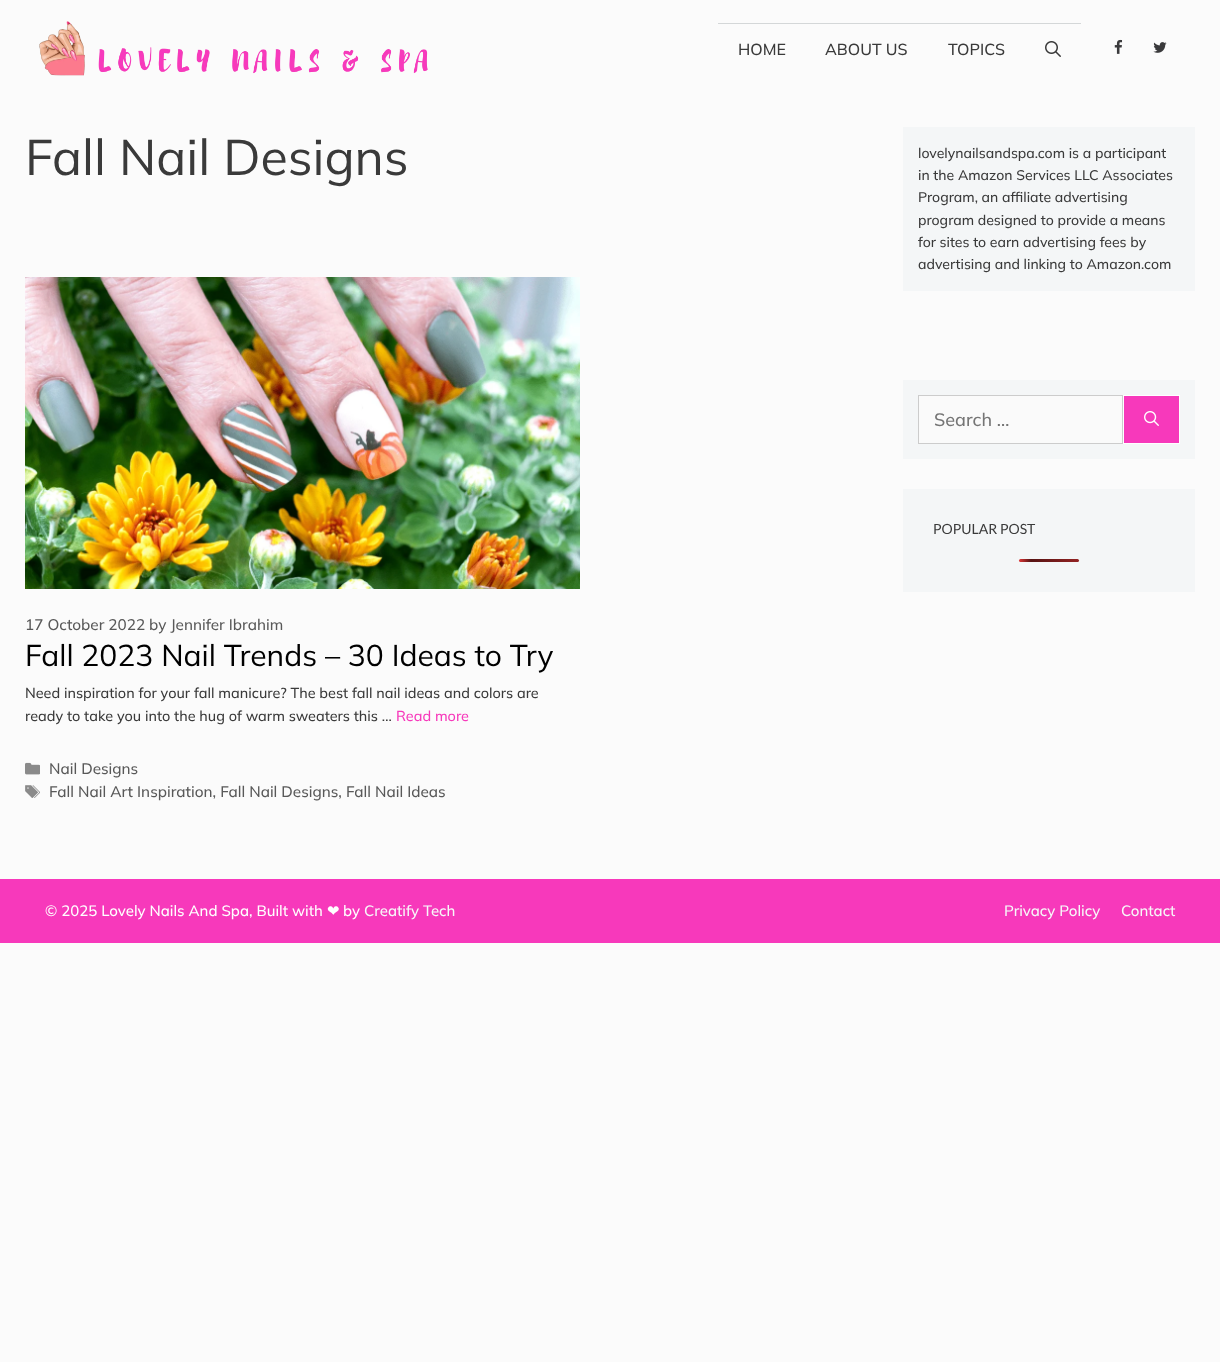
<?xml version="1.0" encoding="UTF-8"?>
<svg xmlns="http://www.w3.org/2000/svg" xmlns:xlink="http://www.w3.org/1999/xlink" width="1220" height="1362">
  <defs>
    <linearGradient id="g1" gradientUnits="userSpaceOnUse" x1="1019" y1="561" x2="1139" y2="561"><stop offset="0" stop-color="#dd3737" /><stop offset="0.1" stop-color="#571313" /><stop offset="1" stop-color="#dd3737" /></linearGradient>
  </defs>
  <rect width="100%" height="100%" fill="#fbfbfb" />
  <image x="39" y="21" width="389" height="55" xlink:href="image1.png" />
  <rect x="718" y="23" width="363" height="1" fill="#d4d7d8" />
  <image x="1045" y="41" width="16" height="16" xlink:href="image2.png" />
  <image x="1114" y="39" width="9" height="15" xlink:href="image3.png" />
  <image x="1153" y="42" width="14" height="11" xlink:href="image4.png" />
  <image x="25" y="277" width="555" height="312" xlink:href="image5.png" />
  <image x="25" y="762" width="15" height="13" xlink:href="image6.png" />
  <image x="25" y="785" width="15" height="13" xlink:href="image7.png" />
  <rect x="903" y="127" width="292" height="164" fill="#f4f6f7" />
  <rect x="903" y="380" width="292" height="79" fill="#f4f6f7" />
  <rect x="918.5" y="395.5" width="204" height="48" fill="#fafafa" stroke="#cccccc" />
  <rect x="1123.5" y="395.5" width="56" height="48" fill="#f739bb" stroke="#ffffff" />
  <image x="1144" y="411" width="15" height="15" xlink:href="image8.png" />
  <rect x="903" y="489" width="292" height="103" fill="#f4f6f7" />
  <rect x="1019" y="559" width="60" height="3" rx="1.5" fill="url(#g1)" />
  <rect y="879" width="1220" height="64" fill="#f739bb" />
  <text x="738" y="55" style="font-family: Mulish; font-size: 16px; font-weight: 500; fill: #3a3a3a">HOME</text>
  <text x="825" y="55" style="font-family: Mulish; font-size: 16px; font-weight: 500; fill: #3a3a3a">ABOUT US</text>
  <text x="948" y="55" style="font-family: Mulish; font-size: 16px; font-weight: 500; fill: #3a3a3a">TOPICS</text>
  <text x="25" y="175" style="font-family: Mulish; font-size: 50px; fill: #3a3a3a">Fall Nail Designs</text>
  <text x="25" y="630" style="font-family: Mulish; font-size: 15.3px; font-weight: 500; fill: #595959">17 October 2022 by Jennifer Ibrahim</text>
  <text x="25" y="666" style="font-family: Mulish; font-size: 30px; fill: #000000">Fall 2023 Nail Trends – 30 Ideas to Try</text>
  <text x="25" y="698" style="font-family: Mulish; font-size: 14.4px; font-weight: 500; fill: #3a3a3a">Need inspiration for your fall manicure? The best fall nail ideas and colors are</text>
  <text x="25" y="721" style="font-family: Mulish; font-size: 14.4px; font-weight: 500; fill: #3a3a3a">ready to take you into the hug of warm sweaters this …</text>
  <text x="396" y="721" style="font-family: Mulish; font-size: 14.4px; font-weight: 500; fill: #f739bb">Read more</text>
  <text x="49" y="774" style="font-family: Mulish; font-size: 15.3px; font-weight: 500; fill: #595959">Nail Designs</text>
  <text x="49" y="797" style="font-family: Mulish; font-size: 15.3px; font-weight: 500; fill: #595959">Fall Nail Art Inspiration, Fall Nail Designs, Fall Nail Ideas</text>
  <text x="918" y="158" style="font-family: Mulish; font-size: 14px; font-weight: 500; fill: #3a3a3a">lovelynailsandspa.com is a participant</text>
  <text x="918" y="180" style="font-family: Mulish; font-size: 14px; font-weight: 500; fill: #3a3a3a">in the Amazon Services LLC Associates</text>
  <text x="918" y="202" style="font-family: Mulish; font-size: 14px; font-weight: 500; fill: #3a3a3a">Program, an affiliate advertising</text>
  <text x="918" y="225" style="font-family: Mulish; font-size: 14px; font-weight: 500; fill: #3a3a3a">program designed to provide a means</text>
  <text x="918" y="247" style="font-family: Mulish; font-size: 14px; font-weight: 500; fill: #3a3a3a">for sites to earn advertising fees by</text>
  <text x="918" y="269" style="font-family: Mulish; font-size: 14px; font-weight: 500; fill: #3a3a3a">advertising and linking to Amazon.com</text>
  <text x="934" y="426" style="font-family: Mulish; font-size: 18px; font-weight: 500; fill: #757575">Search …</text>
  <text x="933" y="534" style="font-family: Lato; font-size: 14px; fill: #3a3a3a">POPULAR POST</text>
  <text x="45" y="916" style="font-family: Mulish; font-size: 15px; font-weight: 500; fill: #ffffff">© 2025 Lovely Nails And Spa, Built with</text>
  <text x="327" y="916" style="font-family: DejaVu Sans; font-size: 15px; fill: #ffffff">❤</text>
  <text x="343" y="916" style="font-family: Mulish; font-size: 15px; font-weight: 500; fill: #ffffff">by</text>
  <text x="364" y="916" style="font-family: Mulish; font-size: 15px; font-weight: 500; fill: #f7f8f9">Creatify Tech</text>
  <text x="1004" y="916" style="font-family: Mulish; font-size: 15px; font-weight: 500; fill: #f7f8f9">Privacy Policy</text>
  <text x="1121" y="916" style="font-family: Mulish; font-size: 15px; font-weight: 500; fill: #f7f8f9">Contact</text>
</svg>
